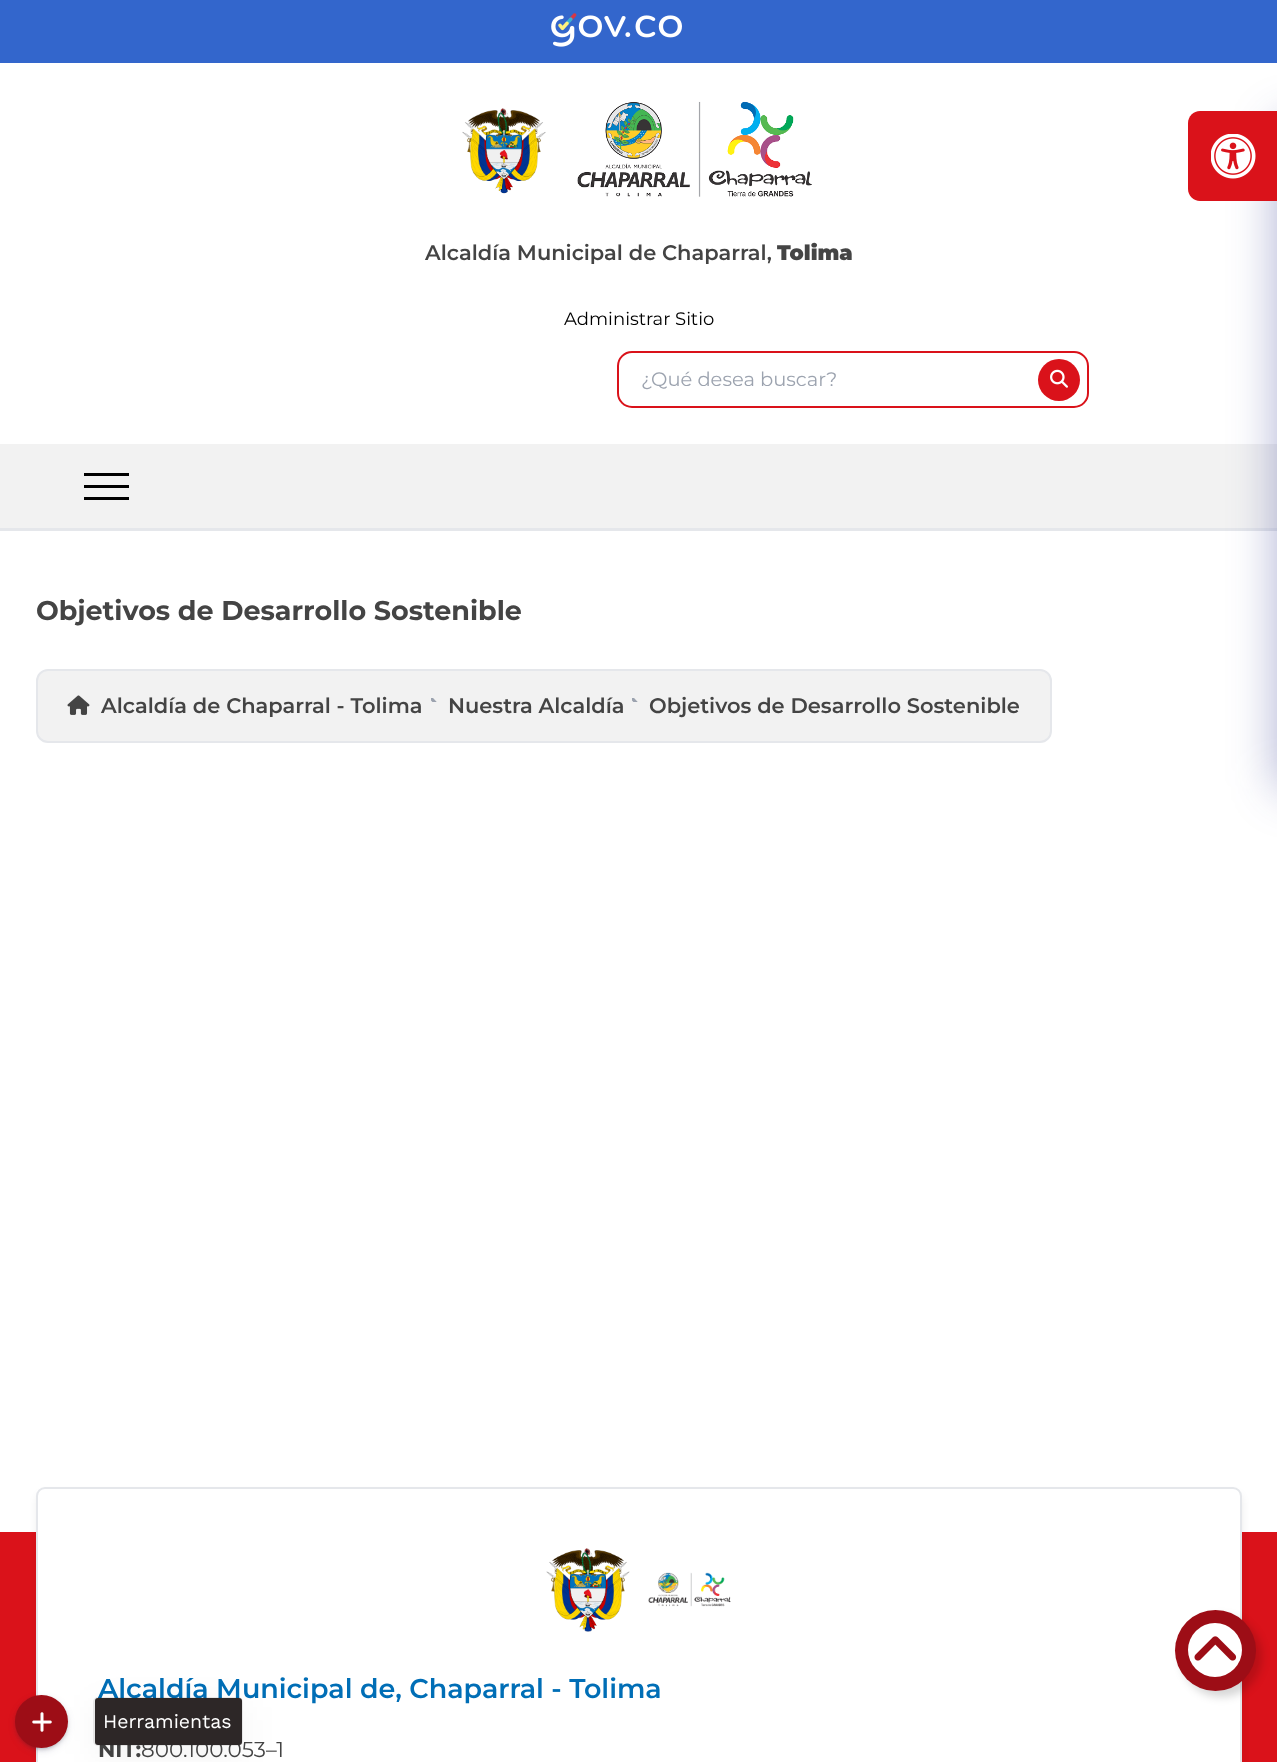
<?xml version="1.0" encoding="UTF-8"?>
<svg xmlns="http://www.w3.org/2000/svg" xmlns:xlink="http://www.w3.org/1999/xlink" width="1277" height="1762">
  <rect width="100%" height="100%" fill="#ffffff" />
  <rect width="1277" height="63" fill="#3366cc" />
  <image x="551" y="13" width="131" height="34" xlink:href="image1.png" />
  <image x="462" y="108" width="84" height="86" xlink:href="image2.png" />
  <image x="577" y="101" width="235" height="96" xlink:href="image3.png" />
  <rect x="618" y="352" width="470" height="55" rx="14" fill="none" stroke="#da121a" stroke-width="2" />
  <circle cx="1059" cy="380" r="21" fill="#da121a" />
  <image x="1050" y="369" width="18" height="19" xlink:href="image4.png" />
  <rect y="444" width="1277" height="84" fill="#f2f2f2" />
  <rect y="528" width="1277" height="3" fill="#e5e7eb" />
  <rect x="84" y="473" width="45" height="3" fill="#000000" />
  <rect x="84" y="485" width="45" height="3" fill="#000000" />
  <rect x="84" y="497" width="45" height="3" fill="#000000" />
  <rect x="37" y="670" width="1014" height="72" rx="11" fill="#f2f2f2" stroke="#e5e7eb" stroke-width="2" />
  <image x="67" y="695" width="23" height="20" xlink:href="image5.png" />
  <image x="431" y="698" width="6" height="4" xlink:href="image6.png" />
  <image x="632" y="698" width="6" height="4" xlink:href="image6.png" />
  <rect y="1532" width="1277" height="230" fill="#da121a" />
  <rect x="38" y="1494" width="1203" height="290" rx="8" fill="#000000" fill-opacity="0.1" filter="blur(4.5px)" />
  <path d="M 45 1487 h 1188 c 5 0 9 4 9 9 v 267 h -1206 v -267 c 0 -5 4 -9 9 -9 z" fill="#ffffff" />
  <rect x="37" y="1488" width="1204" height="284" rx="8" fill="none" stroke="#e5e7eb" stroke-width="2" />
  <image x="546" y="1548" width="84" height="84" xlink:href="image7.png" />
  <image x="648" y="1572" width="83" height="35" xlink:href="image8.png" />
  <rect x="1181" y="1616" width="81" height="81" rx="40.5" fill="#000000" fill-opacity="0.16" filter="blur(4.5px)" />
  <circle cx="1215.5" cy="1650.5" r="40.5" fill="#9d0d16" />
  <circle cx="1215" cy="1650" r="27" fill="#ffffff" />
  <image x="1194" y="1636" width="43" height="25" xlink:href="image9.png" />
  <rect x="17" y="1698" width="49" height="50" rx="24.5" fill="#000000" fill-opacity="0.3" filter="blur(2px)" />
  <rect x="17" y="1700" width="49" height="49" rx="24.5" fill="#32325d" fill-opacity="0.25" filter="blur(4px)" />
  <circle cx="41.5" cy="1721.5" r="26.5" fill="#9d0d16" />
  <image x="32" y="1712" width="20" height="20" xlink:href="image10.png" />
  <rect x="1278" y="123" width="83" height="666" rx="12" fill="#1f2687" fill-opacity="0.37" filter="blur(24px)" />
  <path d="M 1200 111 h 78 v 90 h -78 c -6.5 0 -12 -5.5 -12 -12 v -66 c 0 -6.5 5.5 -12 12 -12 z" fill="#da121a" />
  <image x="1211" y="134" width="45" height="45" xlink:href="image11.png" />
  <text x="425" y="260" style="font-family: Montserrat; font-size: 21px; font-weight: 600; fill: #444444">Alcaldía Municipal de Chaparral,</text>
  <text x="777" y="260" style="font-family: Montserrat; font-size: 21px; font-weight: 900; fill: #444444">Tolima</text>
  <text x="564" y="325" style="font-family: Montserrat; font-size: 18px; fill: #000000">Administrar Sitio</text>
  <text x="641" y="386" style="font-family: Montserrat; font-size: 19.5px; fill: #9ca3af">¿Qué desea buscar?</text>
  <text x="36" y="620" style="font-family: Montserrat; font-size: 27px; font-weight: bold; fill: #444444">Objetivos de Desarrollo Sostenible</text>
  <text x="101" y="713" style="font-family: Montserrat; font-size: 21px; font-weight: 600; fill: #444444">Alcaldía de Chaparral - Tolima</text>
  <text x="448" y="713" style="font-family: Montserrat; font-size: 21px; font-weight: 600; fill: #444444">Nuestra Alcaldía</text>
  <text x="649" y="713" style="font-family: Montserrat; font-size: 21px; font-weight: 600; fill: #444444">Objetivos de Desarrollo Sostenible</text>
  <text x="98" y="1698" style="font-family: Montserrat; font-size: 27px; font-weight: 600; fill: #006eb6">Alcaldía Municipal de, Chaparral - Tolima</text>
  <text x="98" y="1757" style="font-family: Montserrat; font-size: 21.5px; font-weight: bold; fill: #444444">NIT:</text>
  <text x="141" y="1757" style="font-family: Montserrat; font-size: 21.5px; fill: #444444">800.100.053–1</text>
  <rect x="94" y="1698" width="148" height="47" rx="4" fill="none" stroke="#000000" stroke-opacity="0.08" stroke-width="2" />
  <rect x="95" y="1707" width="147" height="47" rx="3" fill="#000000" fill-opacity="0.05" filter="blur(18px)" />
  <rect x="95" y="1698" width="147" height="47" rx="3" fill="#2d2727" />
  <text x="103" y="1728" style="font-family: Work Sans; font-size: 19.5px; fill: #ffffff">Herramientas</text>
</svg>
